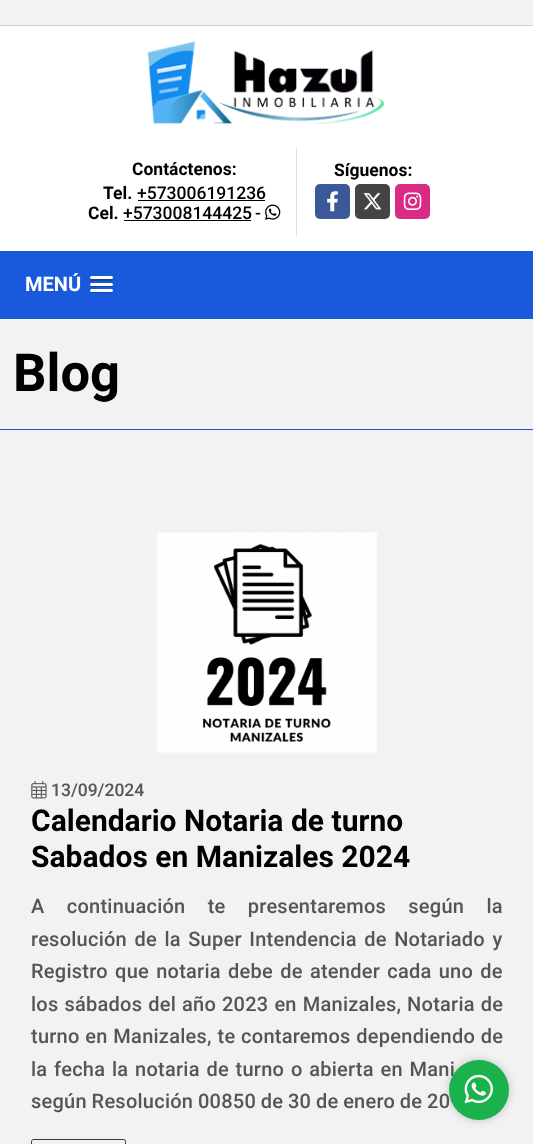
<?xml version="1.0" encoding="UTF-8"?>
<svg xmlns="http://www.w3.org/2000/svg" xmlns:xlink="http://www.w3.org/1999/xlink" width="533" height="1144">
  <rect width="100%" height="100%" fill="#f2f2f2" />
  <rect y="25" width="533" height="1" fill="#d1d1d1" />
  <rect y="26" width="533" height="225" fill="#ffffff" />
  <image x="147" y="41" width="237" height="84" xlink:href="image1.png" />
  <rect x="138" y="200" width="127" height="1" fill="#000000" />
  <rect x="124" y="220" width="127" height="1" fill="#000000" />
  <image x="265" y="204" width="16" height="16" xlink:href="image2.png" />
  <rect x="296" y="148" width="1" height="88" fill="#e0e0e0" />
  <rect x="315" y="184" width="35" height="35" rx="5" fill="#3b5998" />
  <image x="327" y="191" width="11" height="21" xlink:href="image3.png" />
  <rect x="355" y="184" width="35" height="35" rx="5" fill="#444444" />
  <image x="363" y="193" width="19" height="17" xlink:href="image4.png" />
  <rect x="395" y="184" width="35" height="35" rx="5" fill="#d92b86" />
  <image x="403" y="192" width="19" height="18" xlink:href="image5.png" />
  <rect y="251" width="533" height="68" fill="#185adb" />
  <path d="M 90.5 278.5 l -0.5 1.5 c 0.5 2 4 1 5 1 h 3 c 2 0 13.5 0.5 14.5 -0.5 c 0.5 -0.5 0.5 -1.5 0 -2.5 l -1 0.5 c -2 0.5 -20.5 0.5 -21 0 z" fill="#1244a4" />
  <rect x="90" y="276" width="23" height="3" rx="1.5" fill="#ffffff" />
  <path d="M 90.5 284.5 l -0.5 1.5 c 0.5 2 4 1 5 1 h 13 c 1.5 0 5 1 5 -1.5 l -0.5 -1 l -1 0.5 c -2 0.5 -20.5 0.5 -21 -0.5 z" fill="#1244a4" />
  <rect x="90" y="283" width="23" height="3" rx="1.5" fill="#ffffff" />
  <path d="M 90 290.5 c -1.5 3 4.5 2.5 5 2.5 h 13 c 1 0 4.5 1 5 -1 c 0 -0.5 0 -1.5 -0.5 -1.5 l -1 0.5 h -20.5 z" fill="#1244a4" />
  <rect x="90" y="289" width="23" height="3" rx="1.5" fill="#ffffff" />
  <rect y="429" width="533" height="1" fill="#185adb" />
  <image x="157" y="532" width="220" height="221" xlink:href="image6.png" />
  <image x="31" y="781" width="16" height="18" xlink:href="image7.png" />
  <rect x="31.5" y="1139.5" width="94" height="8" rx="2" fill="none" stroke="#343a40" />
  <rect x="449" y="1060" width="60" height="60" rx="30" fill="#000000" fill-opacity="0.2" filter="blur(4px)" />
  <text x="132" y="175" style="font-family: Roboto; font-size: 17.5px; font-weight: bold; fill: #000000">Contáctenos:</text>
  <text x="103" y="199" style="font-family: Roboto; font-size: 17.5px; font-weight: bold; fill: #000000">Tel.</text>
  <text x="137" y="199" style="font-family: Roboto; font-size: 17.5px; font-weight: 500; fill: #000000">+573006191236</text>
  <text x="88" y="219" style="font-family: Roboto; font-size: 17.5px; font-weight: bold; fill: #000000">Cel.</text>
  <text x="123" y="219" style="font-family: Roboto; font-size: 17.5px; font-weight: 500; fill: #000000">+573008144425</text>
  <text x="255" y="219" style="font-family: Roboto; font-size: 17.5px; font-weight: 500; fill: #000000">-</text>
  <text x="334" y="176" style="font-family: Roboto; font-size: 17.5px; font-weight: bold; fill: #000000">Síguenos:</text>
  <text x="25" y="291" style="font-family: Roboto; font-size: 20px; font-weight: bold; fill: #ffffff">MENÚ</text>
  <text x="13" y="391" style="font-family: Roboto; font-size: 52.5px; font-weight: bold; fill: #000000">Blog</text>
  <text x="51" y="796" style="font-family: Roboto; font-size: 17.5px; font-weight: 500; fill: #555555">13/09/2024</text>
  <text x="31" y="831" style="font-family: Roboto; font-size: 30px; font-weight: bold; fill: #000000">Calendario Notaria de turno</text>
  <text x="31" y="867" style="font-family: Roboto; font-size: 30px; font-weight: bold; fill: #000000">Sabados en Manizales 2024</text>
  <text x="31" y="913" word-spacing="17" style="font-family: Roboto; font-size: 20px; font-weight: 500; letter-spacing: 0.25px; fill: #555555">A continuación te presentaremos según la</text>
  <text x="31" y="946" word-spacing="2.25" style="font-family: Roboto; font-size: 20px; font-weight: 500; letter-spacing: 0.25px; fill: #555555">resolución de la Super Intendencia de Notariado y</text>
  <text x="31" y="978" word-spacing="2" style="font-family: Roboto; font-size: 20px; font-weight: 500; letter-spacing: 0.25px; fill: #555555">Registro que notaria debe de atender cada uno de</text>
  <text x="31" y="1011" word-spacing="0.75" style="font-family: Roboto; font-size: 20px; font-weight: 500; letter-spacing: 0.25px; fill: #555555">los sábados del año 2023 en Manizales, Notaria de</text>
  <text x="31" y="1043" word-spacing="0.5" style="font-family: Roboto; font-size: 20px; font-weight: 500; letter-spacing: 0.25px; fill: #555555">turno en Manizales, te contaremos dependiendo de</text>
  <text x="31" y="1076" word-spacing="1.5" style="font-family: Roboto; font-size: 20px; font-weight: 500; letter-spacing: 0.25px; fill: #555555">la fecha la notaria de turno o abierta en Mani</text>
  <text x="31" y="1108" word-spacing="-0.5" style="font-family: Roboto; font-size: 20px; font-weight: 500; letter-spacing: 0.25px; fill: #555555">según Resolución 00850 de 30 de enero de 20</text>
  <circle cx="479" cy="1090" r="30" fill="#1bb24e" />
  <image x="464" y="1074" width="29" height="30" xlink:href="image8.png" />
</svg>
